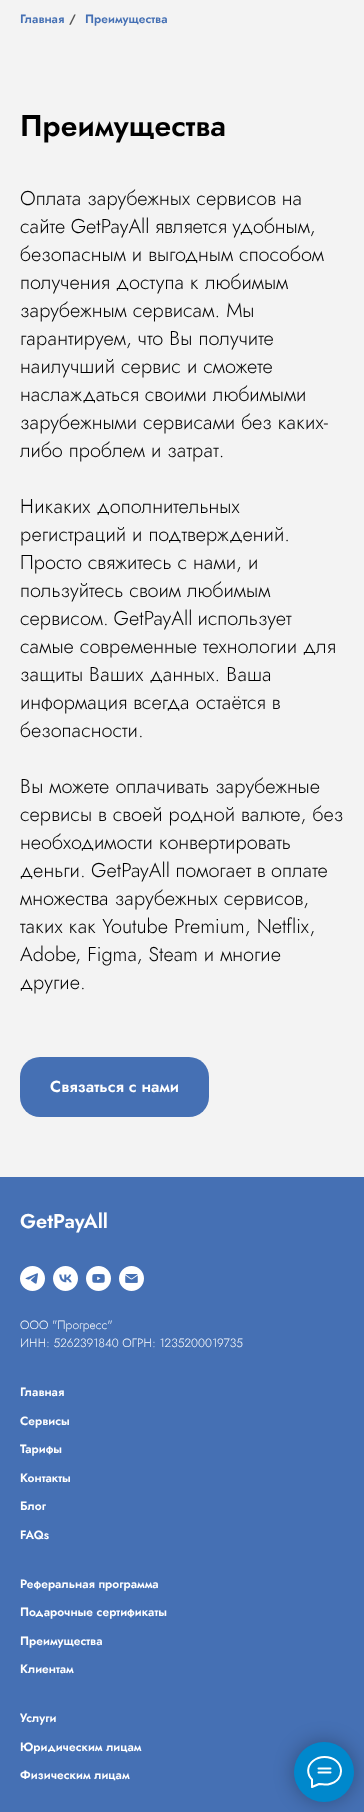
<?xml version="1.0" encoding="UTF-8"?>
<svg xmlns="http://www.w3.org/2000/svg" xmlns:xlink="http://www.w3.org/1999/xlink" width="364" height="1812">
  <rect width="100%" height="100%" fill="#f3f3f3" />
  <rect x="20" y="1057" width="189" height="60" rx="20" fill="#4570b4" />
  <rect y="1177" width="364" height="635" fill="#4570b4" />
  <image x="20" y="1266" width="25" height="25" xlink:href="image1.png" />
  <image x="53" y="1266" width="25" height="25" xlink:href="image2.png" />
  <image x="86" y="1266" width="25" height="25" xlink:href="image3.png" />
  <image x="119" y="1266" width="25" height="25" xlink:href="image4.png" />
  <rect x="294" y="1742" width="60" height="60" rx="30" fill="#000000" fill-opacity="0.3" filter="blur(10px)" />
  <circle cx="324" cy="1772" r="30" fill="#0088cc" />
  <path d="M 318.5 1768.5 h 12 m -12 4 h 12 m -18.5 7 c -5.5 -5.5 -5 -13.5 1 -18.5 c 3 -2.5 7.5 -4 11.5 -4 c 19.5 0 23 24 3.5 27.5 c -4 0.5 -5.5 -0.5 -9 -0.5 l -7 3 v -7 z" fill="none" stroke="#ffffff" stroke-width="2" stroke-linecap="round" stroke-linejoin="round" />
  <text x="20" y="23" style="font-family: Jost; font-size: 12px; font-weight: 600; fill: #4570b4">Главная</text>
  <text x="69" y="23" style="font-family: Jost; font-size: 12px; font-weight: 600; fill: #545454">/</text>
  <text x="85" y="23" style="font-family: Jost; font-size: 12px; font-weight: 600; fill: #4570b4">Преимущества</text>
  <text x="20" y="136" style="font-family: Jost; font-size: 30px; font-weight: 600; fill: #000000">Преимущества</text>
  <text x="20" y="205" style="font-family: Jost; font-size: 20px; font-weight: 300; fill: #000000">Оплата зарубежных сервисов на</text>
  <text x="20" y="233" word-spacing="-0.5" style="font-family: Jost; font-size: 20px; font-weight: 300; fill: #000000">сайте GetPayAll является удобным,</text>
  <text x="20" y="261" style="font-family: Jost; font-size: 20px; font-weight: 300; fill: #000000">безопасным и выгодным способом</text>
  <text x="20" y="289" style="font-family: Jost; font-size: 20px; font-weight: 300; fill: #000000">получения доступа к любимым</text>
  <text x="20" y="317" style="font-family: Jost; font-size: 20px; font-weight: 300; fill: #000000">зарубежным сервисам. Мы</text>
  <text x="20" y="345" style="font-family: Jost; font-size: 20px; font-weight: 300; fill: #000000">гарантируем, что Вы получите</text>
  <text x="20" y="373" style="font-family: Jost; font-size: 20px; font-weight: 300; fill: #000000">наилучший сервис и сможете</text>
  <text x="20" y="401" style="font-family: Jost; font-size: 20px; font-weight: 300; fill: #000000">наслаждаться своими любимыми</text>
  <text x="20" y="429" style="font-family: Jost; font-size: 20px; font-weight: 300; fill: #000000">зарубежными сервисами без каких-</text>
  <text x="20" y="457" style="font-family: Jost; font-size: 20px; font-weight: 300; fill: #000000">либо проблем и затрат.</text>
  <text x="20" y="513" style="font-family: Jost; font-size: 20px; font-weight: 300; fill: #000000">Никаких дополнительных</text>
  <text x="20" y="541" style="font-family: Jost; font-size: 20px; font-weight: 300; fill: #000000">регистраций и подтверждений.</text>
  <text x="20" y="569" style="font-family: Jost; font-size: 20px; font-weight: 300; fill: #000000">Просто свяжитесь с нами, и</text>
  <text x="20" y="597" style="font-family: Jost; font-size: 20px; font-weight: 300; fill: #000000">пользуйтесь своим любимым</text>
  <text x="20" y="625" word-spacing="-1" style="font-family: Jost; font-size: 20px; font-weight: 300; fill: #000000">сервисом. GetPayAll использует</text>
  <text x="20" y="653" style="font-family: Jost; font-size: 20px; font-weight: 300; fill: #000000">самые современные технологии для</text>
  <text x="20" y="681" style="font-family: Jost; font-size: 20px; font-weight: 300; fill: #000000">защиты Ваших данных. Ваша</text>
  <text x="20" y="709" style="font-family: Jost; font-size: 20px; font-weight: 300; fill: #000000">информация всегда остаётся в</text>
  <text x="20" y="737" style="font-family: Jost; font-size: 20px; font-weight: 300; fill: #000000">безопасности.</text>
  <text x="20" y="793" style="font-family: Jost; font-size: 20px; font-weight: 300; fill: #000000">Вы можете оплачивать зарубежные</text>
  <text x="20" y="821" style="font-family: Jost; font-size: 20px; font-weight: 300; fill: #000000">сервисы в своей родной валюте, без</text>
  <text x="20" y="849" style="font-family: Jost; font-size: 20px; font-weight: 300; fill: #000000">необходимости конвертировать</text>
  <text x="20" y="877" word-spacing="-0.5" style="font-family: Jost; font-size: 20px; font-weight: 300; fill: #000000">деньги. GetPayAll помогает в оплате</text>
  <text x="20" y="905" style="font-family: Jost; font-size: 20px; font-weight: 300; fill: #000000">множества зарубежных сервисов,</text>
  <text x="20" y="933" style="font-family: Jost; font-size: 20px; font-weight: 300; fill: #000000">таких как Youtube Premium, Netflix,</text>
  <text x="20" y="961" style="font-family: Jost; font-size: 20px; font-weight: 300; fill: #000000">Adobe, Figma, Steam и многие</text>
  <text x="20" y="989" style="font-family: Jost; font-size: 20px; font-weight: 300; fill: #000000">другие.</text>
  <text x="50" y="1092" style="font-family: Jost; font-size: 16px; font-weight: 600; fill: #ffffff">Связаться с нами</text>
  <text x="20" y="1228" style="font-family: Jost; font-size: 20px; font-weight: 600; fill: #ffffff">GetPayAll</text>
  <text x="20" y="1329" style="font-family: Jost; font-size: 12px; font-weight: 300; fill: #ffffff">ООО "Прогресс"</text>
  <text x="20" y="1347" style="font-family: Jost; font-size: 12px; font-weight: 300; fill: #ffffff">ИНН: 5262391840 ОГРН: 1235200019735</text>
  <text x="20" y="1396" style="font-family: Jost; font-size: 12px; font-weight: 600; fill: #ffffff">Главная</text>
  <text x="20" y="1425" style="font-family: Jost; font-size: 12px; font-weight: 600; fill: #ffffff">Сервисы</text>
  <text x="20" y="1453" style="font-family: Jost; font-size: 12px; font-weight: 600; fill: #ffffff">Тарифы</text>
  <text x="20" y="1482" style="font-family: Jost; font-size: 12px; font-weight: 600; fill: #ffffff">Контакты</text>
  <text x="20" y="1510" style="font-family: Jost; font-size: 12px; font-weight: 600; fill: #ffffff">Блог</text>
  <text x="20" y="1539" style="font-family: Jost; font-size: 12px; font-weight: 600; fill: #ffffff">FAQs</text>
  <text x="20" y="1588" style="font-family: Jost; font-size: 12px; font-weight: 600; fill: #ffffff">Реферальная программа</text>
  <text x="20" y="1616" style="font-family: Jost; font-size: 12px; font-weight: 600; fill: #ffffff">Подарочные сертификаты</text>
  <text x="20" y="1645" style="font-family: Jost; font-size: 12px; font-weight: 600; fill: #ffffff">Преимущества</text>
  <text x="20" y="1673" style="font-family: Jost; font-size: 12px; font-weight: 600; fill: #ffffff">Клиентам</text>
  <text x="20" y="1722" style="font-family: Jost; font-size: 12px; font-weight: 600; fill: #ffffff">Услуги</text>
  <text x="20" y="1751" style="font-family: Jost; font-size: 12px; font-weight: 600; fill: #ffffff">Юридическим лицам</text>
  <text x="20" y="1779" style="font-family: Jost; font-size: 12px; font-weight: 600; fill: #ffffff">Физическим лицам</text>
</svg>
